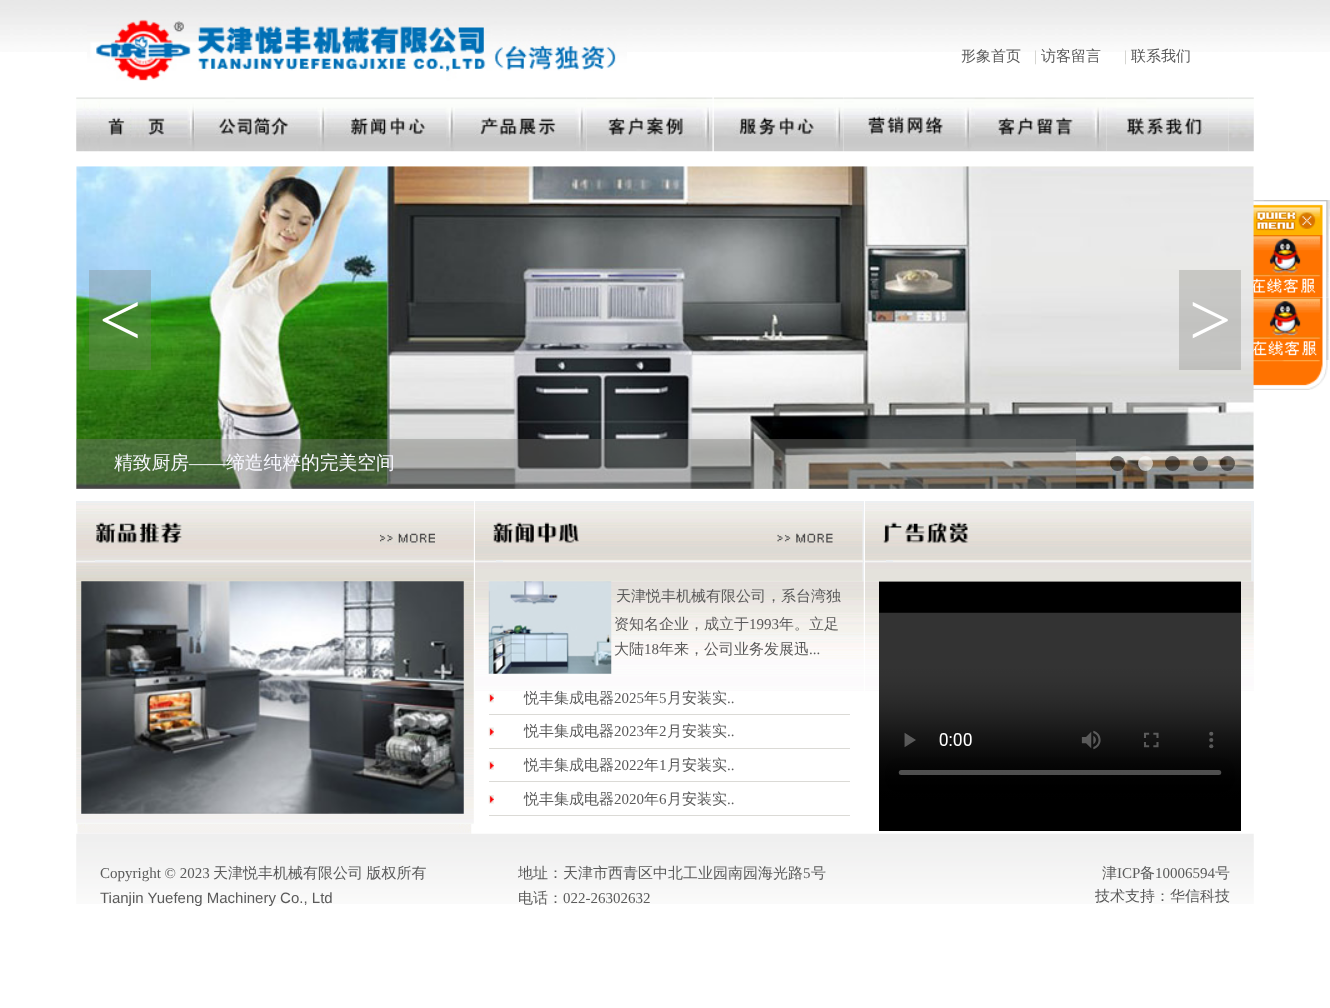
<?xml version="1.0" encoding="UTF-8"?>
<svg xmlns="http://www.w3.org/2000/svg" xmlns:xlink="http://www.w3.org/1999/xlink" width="1330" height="1008">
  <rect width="100%" height="100%" fill="#ffffff" />
  <image x="0" y="0" width="1330" height="52" xlink:href="image1.png" />
  <image x="87" y="19" width="540" height="62" xlink:href="image2.png" />
  <image x="76" y="97" width="119" height="55" xlink:href="image3.png" />
  <image x="195" y="97" width="130" height="55" xlink:href="image4.png" />
  <image x="325" y="97" width="130" height="55" xlink:href="image5.png" />
  <image x="455" y="97" width="132" height="55" xlink:href="image6.png" />
  <image x="586" y="97" width="127" height="55" xlink:href="image7.png" />
  <image x="713" y="97" width="131" height="55" xlink:href="image8.png" />
  <image x="844" y="97" width="131" height="55" xlink:href="image9.png" />
  <image x="975" y="97" width="132" height="55" xlink:href="image10.png" />
  <image x="1106" y="97" width="123" height="55" xlink:href="image11.png" />
  <image x="1228" y="97" width="26" height="55" xlink:href="image12.png" />
  <image x="1253" y="200" width="77" height="35" xlink:href="image14.png" />
  <image x="1253" y="235" width="76" height="63" xlink:href="image15.png" />
  <image x="1253" y="297" width="76" height="63" xlink:href="image16.png" />
  <image x="1253" y="360" width="75" height="30" xlink:href="image17.png" />
  <image x="76" y="166" width="1178" height="323" xlink:href="image13.png" />
  <rect x="89" y="270" width="62" height="100" fill="#7d7d78" fill-opacity="0.3" />
  <rect x="1179" y="270" width="62" height="100" fill="#7d7d78" fill-opacity="0.3" />
  <rect x="76" y="439" width="1000" height="50" fill="#7d7d78" fill-opacity="0.4" />
  <circle cx="1117.5" cy="463.5" r="7.5" fill="#000000" fill-opacity="0.5" />
  <circle cx="1145.5" cy="463.5" r="7.5" fill="#ffffff" fill-opacity="0.6" />
  <circle cx="1172.5" cy="463.5" r="7.5" fill="#000000" fill-opacity="0.5" />
  <circle cx="1200.5" cy="463.5" r="7.5" fill="#000000" fill-opacity="0.5" />
  <circle cx="1227.5" cy="463.5" r="7.5" fill="#000000" fill-opacity="0.5" />
  <rect x="76" y="501" width="398" height="80" fill="#eceff2" />
  <image x="76" y="503" width="398" height="17" xlink:href="image18.png" />
  <image x="76" y="520" width="19" height="40" xlink:href="image19.png" />
  <image x="95" y="520" width="379" height="40" xlink:href="image20.png" />
  <image x="95" y="522" width="88" height="22" xlink:href="image21.png" />
  <image x="380" y="533" width="55" height="12" xlink:href="image22.png" />
  <rect x="76" y="560" width="19" height="1" fill="#e8e7e6" />
  <rect x="130" y="560" width="344" height="1" fill="#f1efeb" />
  <rect x="76" y="561" width="19" height="1" fill="#f6f5f3" />
  <rect x="130" y="561" width="344" height="1" fill="#f6f5f3" />
  <image x="76" y="562" width="398" height="20" xlink:href="image23.png" />
  <rect x="475" y="501" width="389" height="80" fill="#eceff2" />
  <image x="475" y="503" width="388" height="17" xlink:href="image24.png" />
  <image x="475" y="520" width="388" height="40" xlink:href="image25.png" />
  <image x="492" y="522" width="88" height="23" xlink:href="image26.png" />
  <image x="777" y="533" width="56" height="12" xlink:href="image27.png" />
  <rect x="475" y="560" width="21" height="1" fill="#e8e7e6" />
  <rect x="503" y="560" width="360" height="1" fill="#f1efeb" />
  <rect x="475" y="561" width="21" height="1" fill="#f6f5f3" />
  <rect x="503" y="561" width="360" height="1" fill="#f6f5f3" />
  <image x="475" y="562" width="388" height="20" xlink:href="image28.png" />
  <rect x="865" y="501" width="389" height="80" fill="#eceff2" />
  <image x="865" y="503" width="386" height="17" xlink:href="image29.png" />
  <image x="865" y="520" width="387" height="40" xlink:href="image30.png" />
  <image x="882" y="522" width="88" height="23" xlink:href="image31.png" />
  <rect x="865" y="560" width="21" height="1" fill="#e8e7e6" />
  <rect x="893" y="560" width="358" height="1" fill="#f1efeb" />
  <rect x="865" y="561" width="21" height="1" fill="#f6f5f3" />
  <rect x="893" y="561" width="358" height="1" fill="#f6f5f3" />
  <image x="865" y="562" width="387" height="20" xlink:href="image32.png" />
  <image x="76" y="581" width="398" height="243" xlink:href="image33.png" />
  <image x="81" y="581" width="383" height="233" xlink:href="image34.png" />
  <image x="76" y="833" width="1178" height="71" xlink:href="image44.png" />
  <image x="77" y="824" width="395" height="10" xlink:href="image35.png" />
  <image x="475" y="581" width="389" height="110" xlink:href="image36.png" />
  <image x="488" y="581" width="124" height="93" xlink:href="image37.png" />
  <image x="488" y="693" width="6" height="10" xlink:href="image38.png" />
  <rect x="489" y="714" width="361" height="1" fill="#dbdad6" />
  <image x="488" y="727" width="6" height="10" xlink:href="image39.png" />
  <rect x="489" y="748" width="361" height="1" fill="#dbdad6" />
  <image x="488" y="761" width="6" height="9" xlink:href="image40.png" />
  <rect x="489" y="781" width="361" height="1" fill="#dbdad6" />
  <image x="488" y="795" width="6" height="9" xlink:href="image41.png" />
  <rect x="489" y="815" width="361" height="1" fill="#dbdad6" />
  <image x="865" y="581" width="389" height="110" xlink:href="image42.png" />
  <image x="879" y="581" width="362" height="250" xlink:href="image43.png" />
  <text x="961" y="61" style="font-family: WenQuanYi Zen Hei; font-size: 15px; font-weight: 500; fill: #5a5a5a">形象首页</text>
  <text x="1034" y="61" style="font-family: Liberation Serif; font-size: 15px; fill: #cacac5">|</text>
  <text x="1041" y="61" style="font-family: WenQuanYi Zen Hei; font-size: 15px; font-weight: 500; fill: #5a5a5a">访客留言</text>
  <text x="1124" y="61" style="font-family: Liberation Serif; font-size: 15px; fill: #cacac5">|</text>
  <text x="1131" y="61" style="font-family: WenQuanYi Zen Hei; font-size: 15px; font-weight: 500; fill: #5a5a5a">联系我们</text>
  <text x="99" y="345" style="font-family: Liberation Serif; font-size: 75px; fill: #ffffff">&lt;</text>
  <text x="1189" y="345" style="font-family: Liberation Serif; font-size: 75px; fill: #ffffff">&gt;</text>
  <text x="114" y="469" style="font-family: WenQuanYi Zen Hei; font-size: 18.75px; font-weight: 500; fill: #f8f8ff">精致厨房</text>
  <text x="189" y="469" style="font-family: Liberation Serif; font-size: 18.75px; fill: #f8f8ff">——</text>
  <text x="226" y="469" style="font-family: WenQuanYi Zen Hei; font-size: 18.75px; font-weight: 500; fill: #f8f8ff">缔造纯粹的完美空间</text>
  <text x="616" y="601" style="font-family: WenQuanYi Zen Hei; font-size: 15px; font-weight: 500; fill: #5a5a5a">天津悦丰机械有限公司，系台湾独</text>
  <text x="614" y="629" style="font-family: WenQuanYi Zen Hei; font-size: 15px; font-weight: 500; fill: #5a5a5a">资知名企业，成立于</text>
  <text x="749" y="629" style="font-family: Liberation Serif; font-size: 15px; fill: #5a5a5a">1993</text>
  <text x="779" y="629" style="font-family: WenQuanYi Zen Hei; font-size: 15px; font-weight: 500; fill: #5a5a5a">年。立足</text>
  <text x="614" y="654" style="font-family: WenQuanYi Zen Hei; font-size: 15px; font-weight: 500; fill: #5a5a5a">大陆</text>
  <text x="644" y="654" style="font-family: Liberation Serif; font-size: 15px; fill: #5a5a5a">18</text>
  <text x="659" y="654" style="font-family: WenQuanYi Zen Hei; font-size: 15px; font-weight: 500; fill: #5a5a5a">年来，公司业务发展迅</text>
  <text x="809" y="654" style="font-family: Liberation Serif; font-size: 15px; fill: #5a5a5a">...</text>
  <text x="524" y="703" style="font-family: WenQuanYi Zen Hei; font-size: 15px; font-weight: 500; fill: #5a5a5a">悦丰集成电器</text>
  <text x="614" y="703" style="font-family: Liberation Serif; font-size: 15px; fill: #5a5a5a">2025</text>
  <text x="644" y="703" style="font-family: WenQuanYi Zen Hei; font-size: 15px; font-weight: 500; fill: #5a5a5a">年</text>
  <text x="659" y="703" style="font-family: Liberation Serif; font-size: 15px; fill: #5a5a5a">5</text>
  <text x="667" y="703" style="font-family: WenQuanYi Zen Hei; font-size: 15px; font-weight: 500; fill: #5a5a5a">月安装实</text>
  <text x="727" y="703" style="font-family: Liberation Serif; font-size: 15px; fill: #5a5a5a">..</text>
  <text x="524" y="736" style="font-family: WenQuanYi Zen Hei; font-size: 15px; font-weight: 500; fill: #5a5a5a">悦丰集成电器</text>
  <text x="614" y="736" style="font-family: Liberation Serif; font-size: 15px; fill: #5a5a5a">2023</text>
  <text x="644" y="736" style="font-family: WenQuanYi Zen Hei; font-size: 15px; font-weight: 500; fill: #5a5a5a">年</text>
  <text x="659" y="736" style="font-family: Liberation Serif; font-size: 15px; fill: #5a5a5a">2</text>
  <text x="667" y="736" style="font-family: WenQuanYi Zen Hei; font-size: 15px; font-weight: 500; fill: #5a5a5a">月安装实</text>
  <text x="727" y="736" style="font-family: Liberation Serif; font-size: 15px; fill: #5a5a5a">..</text>
  <text x="524" y="770" style="font-family: WenQuanYi Zen Hei; font-size: 15px; font-weight: 500; fill: #5a5a5a">悦丰集成电器</text>
  <text x="614" y="770" style="font-family: Liberation Serif; font-size: 15px; fill: #5a5a5a">2022</text>
  <text x="644" y="770" style="font-family: WenQuanYi Zen Hei; font-size: 15px; font-weight: 500; fill: #5a5a5a">年</text>
  <text x="659" y="770" style="font-family: Liberation Serif; font-size: 15px; fill: #5a5a5a">1</text>
  <text x="667" y="770" style="font-family: WenQuanYi Zen Hei; font-size: 15px; font-weight: 500; fill: #5a5a5a">月安装实</text>
  <text x="727" y="770" style="font-family: Liberation Serif; font-size: 15px; fill: #5a5a5a">..</text>
  <text x="524" y="804" style="font-family: WenQuanYi Zen Hei; font-size: 15px; font-weight: 500; fill: #5a5a5a">悦丰集成电器</text>
  <text x="614" y="804" style="font-family: Liberation Serif; font-size: 15px; fill: #5a5a5a">2020</text>
  <text x="644" y="804" style="font-family: WenQuanYi Zen Hei; font-size: 15px; font-weight: 500; fill: #5a5a5a">年</text>
  <text x="659" y="804" style="font-family: Liberation Serif; font-size: 15px; fill: #5a5a5a">6</text>
  <text x="667" y="804" style="font-family: WenQuanYi Zen Hei; font-size: 15px; font-weight: 500; fill: #5a5a5a">月安装实</text>
  <text x="727" y="804" style="font-family: Liberation Serif; font-size: 15px; fill: #5a5a5a">..</text>
  <text x="100" y="878" style="font-family: Liberation Serif; font-size: 15px; fill: #5a5a5a">Copyright © 2023</text>
  <text x="213" y="878" word-spacing="-1" style="font-family: WenQuanYi Zen Hei; font-size: 15px; font-weight: 500; fill: #5a5a5a">天津悦丰机械有限公司 版权所有</text>
  <text x="100" y="903" style="font-family: Liberation Sans; font-size: 15px; fill: #5a5a5a">Tianjin Yuefeng Machinery Co., Ltd</text>
  <text x="518" y="878" style="font-family: WenQuanYi Zen Hei; font-size: 15px; font-weight: 500; fill: #5a5a5a">地址：天津市西青区中北工业园南园海光路</text>
  <text x="803" y="878" style="font-family: Liberation Serif; font-size: 15px; fill: #5a5a5a">5</text>
  <text x="811" y="878" style="font-family: WenQuanYi Zen Hei; font-size: 15px; font-weight: 500; fill: #5a5a5a">号</text>
  <text x="518" y="903" style="font-family: WenQuanYi Zen Hei; font-size: 15px; font-weight: 500; fill: #5a5a5a">电话：</text>
  <text x="563" y="903" style="font-family: Liberation Serif; font-size: 15px; fill: #5a5a5a">022-26302632</text>
  <text x="1102" y="878" style="font-family: WenQuanYi Zen Hei; font-size: 15px; font-weight: 500; fill: #5a5a5a">津</text>
  <text x="1117" y="878" style="font-family: Liberation Serif; font-size: 15px; fill: #5a5a5a">ICP</text>
  <text x="1140" y="878" style="font-family: WenQuanYi Zen Hei; font-size: 15px; font-weight: 500; fill: #5a5a5a">备</text>
  <text x="1155" y="878" style="font-family: Liberation Serif; font-size: 15px; fill: #5a5a5a">10006594</text>
  <text x="1215" y="878" style="font-family: WenQuanYi Zen Hei; font-size: 15px; font-weight: 500; fill: #5a5a5a">号</text>
  <text x="1095" y="901" style="font-family: WenQuanYi Zen Hei; font-size: 15px; font-weight: 500; fill: #5a5a5a">技术支持：华信科技</text>
</svg>
